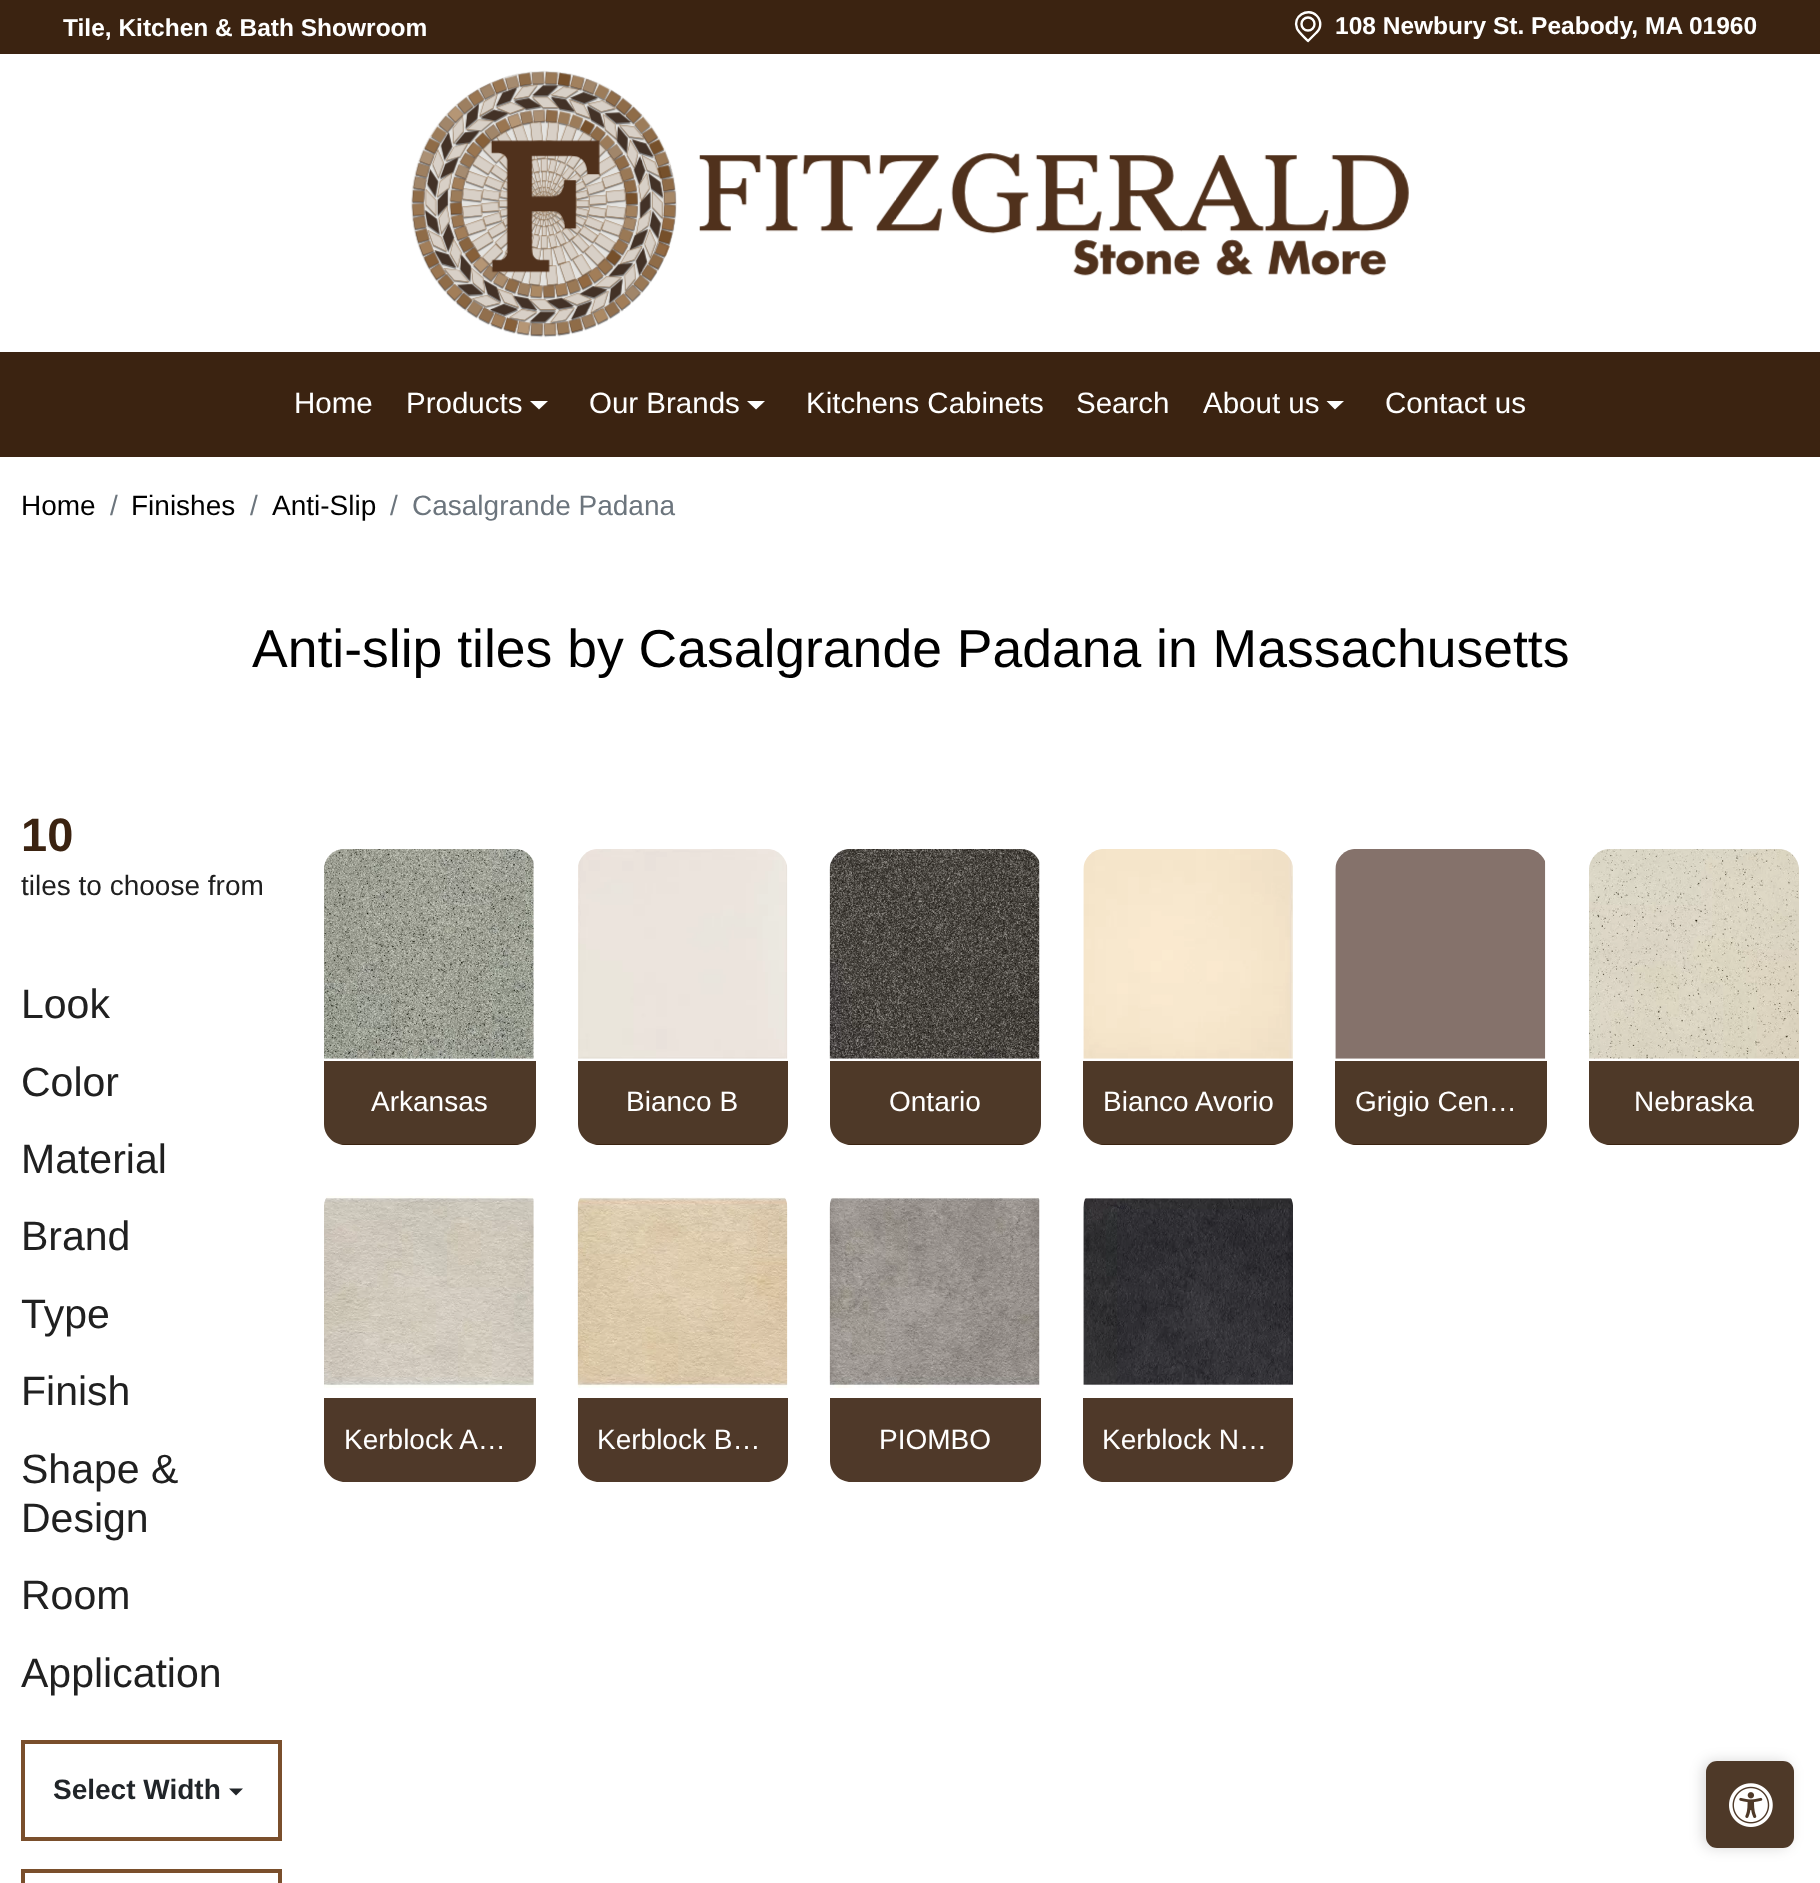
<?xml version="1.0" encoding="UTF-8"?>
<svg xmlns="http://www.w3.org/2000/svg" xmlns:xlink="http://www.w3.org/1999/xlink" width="1820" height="1883">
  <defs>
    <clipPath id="clip1"><path d="M 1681 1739 h 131 v 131 h -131 z m 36 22 h 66 c 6 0 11 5 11 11 v 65 c 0 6 -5 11 -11 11 h -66 c -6 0 -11 -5 -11 -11 v -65 c 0 -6 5 -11 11 -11 z" clip-rule="evenodd" /></clipPath>
  </defs>
  <rect width="100%" height="100%" fill="#ffffff" />
  <rect width="1820" height="54" fill="#3b2311" />
  <path d="M 1316.5 15.5 c -9 -8.5 -24.5 1 -19.5 13 c 2 4.5 8 9 11 12.5 l 8.5 -8.5 c 5 -4.5 5 -12 0 -17 z" fill="none" stroke="#ffffff" stroke-width="2.4" stroke-linecap="round" stroke-linejoin="round" />
  <circle cx="1308" cy="24" r="6.5" fill="none" stroke="#ffffff" stroke-width="2.4" />
  <image x="410" y="70" width="999" height="268" xlink:href="image1.png" />
  <rect y="352" width="1820" height="105" fill="#3b2311" />
  <path d="M 530 401 h 18 l -9 8.5 z" fill="#ffffff" />
  <path d="M 747 401 h 18 l -9 8.5 z" fill="#ffffff" />
  <path d="M 1326.5 401 h 17.5 l -9 8.5 z" fill="#ffffff" />
  <g clip-path="url(#clip1)">
    <rect x="1703" y="1761" width="87" height="87" rx="11" fill="#000000" fill-opacity="0.15" filter="blur(7px)" />
  </g>
  <rect x="1706" y="1761" width="88" height="87" rx="11" fill="#3b2311" fill-opacity="0.9" />
  <image x="1729" y="1783" width="44" height="44" xlink:href="image2.png" />
  <rect x="23" y="1742" width="257" height="97" fill="none" stroke="#7a4f2c" stroke-width="4" />
  <path d="M 229 1788.5 h 14 l -7 7 z" fill="#212529" />
  <rect x="23" y="1871" width="257" height="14" fill="none" stroke="#7a4f2c" stroke-width="4" />
  <image x="324" y="849" width="210" height="210" xlink:href="image3.png" />
  <path d="M 340 1144 l 5 1 h 170 l 5 -1 z m 196 -15 v -5 v -56 z" fill="#3b2311" fill-rule="evenodd" />
  <path d="M 324 1061 h 212 v 63 c 0 11.5 -9.5 21 -21 21 h -170 c -11.5 0 -21 -9.5 -21 -21 z" fill="#3b2311" fill-opacity="0.9" />
  <image x="578" y="849" width="210" height="210" xlink:href="image4.png" />
  <path d="M 594 1144 l 5 1 h 168 l 5 -1 z m 194 -15 v -5 v -56 z" fill="#3b2311" fill-rule="evenodd" />
  <path d="M 578 1061 h 210 v 63 c 0 11.5 -9.5 21 -21 21 h -168 c -11.5 0 -21 -9.5 -21 -21 z" fill="#3b2311" fill-opacity="0.9" />
  <image x="829" y="849" width="211" height="210" xlink:href="image5.png" />
  <path d="M 846 1144 l 5 1 h 169 l 5 -1 z" fill="#3b2311" />
  <path d="M 830 1061 h 211 v 63 c 0 11.5 -9.5 21 -21 21 h -169 c -11.5 0 -21 -9.5 -21 -21 z" fill="#3b2311" fill-opacity="0.9" />
  <image x="1083" y="849" width="210" height="210" xlink:href="image6.png" />
  <path d="M 1099 1144 l 5 1 h 168 l 5 -1 z" fill="#3b2311" />
  <path d="M 1083 1061 h 210 v 63 c 0 11.5 -9.5 21 -21 21 h -168 c -11.5 0 -21 -9.5 -21 -21 z" fill="#3b2311" fill-opacity="0.9" />
  <image x="1335" y="849" width="211" height="210" xlink:href="image7.png" />
  <path d="M 1351 1144 l 5 1 h 170 l 5 -1 z" fill="#3b2311" />
  <path d="M 1335 1061 h 212 v 63 c 0 11.5 -9.5 21 -21 21 h -170 c -11.5 0 -21 -9.5 -21 -21 z" fill="#3b2311" fill-opacity="0.9" />
  <image x="1589" y="849" width="210" height="210" xlink:href="image8.png" />
  <path d="M 1605 1144 l 5 1 h 168 l 5 -1 z" fill="#3b2311" />
  <path d="M 1589 1061 h 210 v 63 c 0 11.5 -9.5 21 -21 21 h -168 c -11.5 0 -21 -9.5 -21 -21 z" fill="#3b2311" fill-opacity="0.9" />
  <image x="324" y="1196" width="210" height="192" xlink:href="image9.png" />
  <path d="M 324 1398 h 212 v 63 c 0 11.5 -9.5 21 -21 21 h -170 c -11.5 0 -21 -9.5 -21 -21 z" fill="#4f3929" />
  <image x="577" y="1197" width="211" height="191" xlink:href="image10.png" />
  <path d="M 578 1398 h 210 v 63 c 0 11.5 -9.5 21 -21 21 h -168 c -11.5 0 -21 -9.5 -21 -21 z" fill="#4f3929" />
  <image x="829" y="1197" width="211" height="191" xlink:href="image11.png" />
  <path d="M 830 1398 h 211 v 63 c 0 11.5 -9.5 21 -21 21 h -169 c -11.5 0 -21 -9.5 -21 -21 z" fill="#4f3929" />
  <image x="1083" y="1198" width="210" height="188" xlink:href="image12.png" />
  <path d="M 1083 1398 h 210 v 63 c 0 11.5 -9.5 21 -21 21 h -168 c -11.5 0 -21 -9.5 -21 -21 z" fill="#4f3929" />
  <text x="63" y="36" style="font-family: Liberation Sans; font-size: 24.5px; font-weight: bold; fill: #ffffff">Tile, Kitchen &amp; Bath Showroom</text>
  <text x="1335" y="34" style="font-family: Liberation Sans; font-size: 24.5px; font-weight: bold; fill: #ffffff">108 Newbury St. Peabody, MA 01960</text>
  <text x="294" y="413" style="font-family: Liberation Sans; font-size: 29.5px; fill: #ffffff">Home</text>
  <text x="406" y="413" style="font-family: Liberation Sans; font-size: 29.5px; fill: #ffffff">Products</text>
  <text x="589" y="413" style="font-family: Liberation Sans; font-size: 29.5px; fill: #ffffff">Our Brands</text>
  <text x="806" y="413" style="font-family: Liberation Sans; font-size: 29.5px; fill: #ffffff">Kitchens Cabinets</text>
  <text x="1076" y="413" style="font-family: Liberation Sans; font-size: 29.5px; fill: #ffffff">Search</text>
  <text x="1203" y="413" style="font-family: Liberation Sans; font-size: 29.5px; fill: #ffffff">About us</text>
  <text x="1385" y="413" style="font-family: Liberation Sans; font-size: 29.5px; fill: #ffffff">Contact us</text>
  <text x="21" y="515" style="font-family: Liberation Sans; font-size: 28px; fill: #000000">Home</text>
  <text x="110" y="515" style="font-family: Liberation Sans; font-size: 28px; fill: #6c757d">/</text>
  <text x="131" y="515" style="font-family: Liberation Sans; font-size: 28px; fill: #000000">Finishes</text>
  <text x="250" y="515" style="font-family: Liberation Sans; font-size: 28px; fill: #6c757d">/</text>
  <text x="272" y="515" style="font-family: Liberation Sans; font-size: 28px; fill: #000000">Anti-Slip</text>
  <text x="390" y="515" style="font-family: Liberation Sans; font-size: 28px; fill: #6c757d">/</text>
  <text x="412" y="515" style="font-family: Liberation Sans; font-size: 28px; fill: #6c757d">Casalgrande Padana</text>
  <text x="252" y="667" style="font-family: Liberation Sans; font-size: 53.5px; fill: #000000">Anti-slip tiles by Casalgrande Padana in Massachusetts</text>
  <text x="21" y="851" style="font-family: Liberation Sans; font-size: 47px; font-weight: bold; fill: #3b2311">10</text>
  <text x="21" y="895" style="font-family: Liberation Sans; font-size: 28px; fill: #202020">tiles to choose from</text>
  <text x="21" y="1018" style="font-family: Liberation Sans; font-size: 41px; fill: #202020">Look</text>
  <text x="21" y="1096" style="font-family: Liberation Sans; font-size: 41px; fill: #202020">Color</text>
  <text x="21" y="1173" style="font-family: Liberation Sans; font-size: 41px; fill: #202020">Material</text>
  <text x="21" y="1250" style="font-family: Liberation Sans; font-size: 41px; fill: #202020">Brand</text>
  <text x="21" y="1328" style="font-family: Liberation Sans; font-size: 41px; fill: #202020">Type</text>
  <text x="21" y="1405" style="font-family: Liberation Sans; font-size: 41px; fill: #202020">Finish</text>
  <text x="21" y="1483" style="font-family: Liberation Sans; font-size: 41px; fill: #202020">Shape &amp;</text>
  <text x="21" y="1532" style="font-family: Liberation Sans; font-size: 41px; fill: #202020">Design</text>
  <text x="21" y="1609" style="font-family: Liberation Sans; font-size: 41px; fill: #202020">Room</text>
  <text x="21" y="1687" style="font-family: Liberation Sans; font-size: 41px; fill: #202020">Application</text>
  <text x="53" y="1799" style="font-family: Liberation Sans; font-size: 28px; font-weight: bold; fill: #212529">Select Width</text>
  <text x="371" y="1111" style="font-family: Liberation Sans; font-size: 28px; fill: #ffffff">Arkansas</text>
  <text x="626" y="1111" style="font-family: Liberation Sans; font-size: 28px; fill: #ffffff">Bianco B</text>
  <text x="889" y="1111" style="font-family: Liberation Sans; font-size: 28px; fill: #ffffff">Ontario</text>
  <text x="1103" y="1111" style="font-family: Liberation Sans; font-size: 28px; fill: #ffffff">Bianco Avorio</text>
  <text x="1355" y="1111" style="font-family: Liberation Sans; font-size: 28px; fill: #ffffff">Grigio Cen…</text>
  <text x="1634" y="1111" style="font-family: Liberation Sans; font-size: 28px; fill: #ffffff">Nebraska</text>
  <text x="344" y="1449" style="font-family: Liberation Sans; font-size: 28px; fill: #ffffff">Kerblock A…</text>
  <text x="597" y="1449" style="font-family: Liberation Sans; font-size: 28px; fill: #ffffff">Kerblock B…</text>
  <text x="879" y="1449" style="font-family: Liberation Sans; font-size: 28px; fill: #ffffff">PIOMBO</text>
  <text x="1102" y="1449" style="font-family: Liberation Sans; font-size: 28px; fill: #ffffff">Kerblock N…</text>
</svg>
